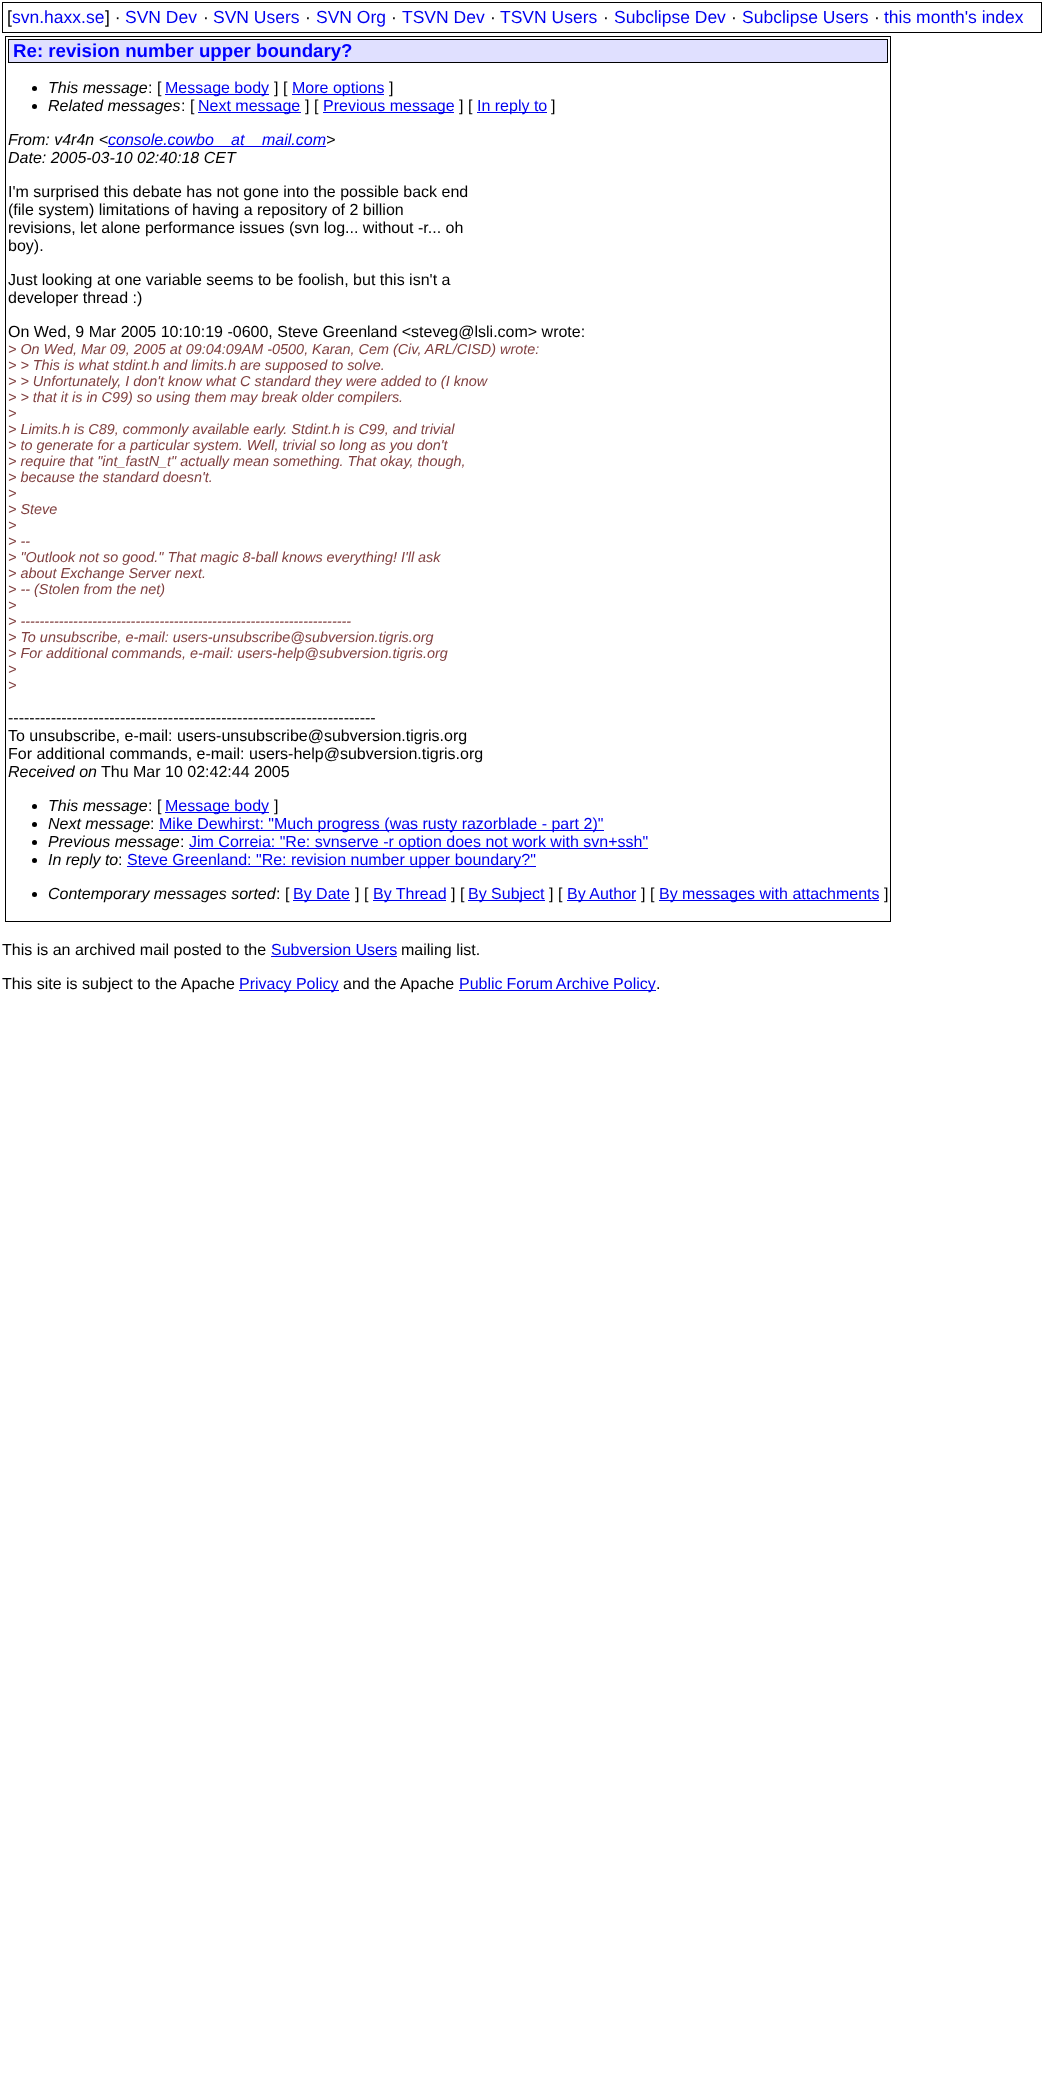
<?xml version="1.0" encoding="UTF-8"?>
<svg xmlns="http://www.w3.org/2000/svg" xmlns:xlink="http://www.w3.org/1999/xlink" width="1044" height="2080">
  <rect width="100%" height="100%" fill="#ffffff" />
  <rect x="2.5" y="2.5" width="1039" height="30" fill="none" stroke="#000000" />
  <rect x="5.5" y="36.5" width="885" height="885" fill="none" stroke="#000000" />
  <rect x="8.5" y="39.5" width="879" height="23" fill="#e0e0ff" stroke="#000000" />
  <circle cx="34.5" cy="88.5" r="2.5" fill="#000000" />
  <rect x="165" y="94" width="104" height="1" fill="#0000ee" />
  <rect x="292" y="94" width="92" height="1" fill="#0000ee" />
  <circle cx="34.5" cy="106.5" r="2.5" fill="#000000" />
  <rect x="198" y="112" width="103" height="1" fill="#0000ee" />
  <rect x="323" y="112" width="131" height="1" fill="#0000ee" />
  <rect x="477" y="112" width="70" height="1" fill="#0000ee" />
  <rect x="108" y="146" width="218" height="1" fill="#0000ee" />
  <circle cx="34.5" cy="806.5" r="2.5" fill="#000000" />
  <rect x="165" y="812" width="104" height="1" fill="#0000ee" />
  <circle cx="34.5" cy="824.5" r="2.5" fill="#000000" />
  <rect x="159" y="830" width="445" height="1" fill="#0000ee" />
  <circle cx="34.5" cy="842.5" r="2.5" fill="#000000" />
  <rect x="189" y="848" width="459" height="1" fill="#0000ee" />
  <circle cx="34.5" cy="860.5" r="2.5" fill="#000000" />
  <rect x="127" y="866" width="409" height="1" fill="#0000ee" />
  <circle cx="34.5" cy="894.5" r="2.5" fill="#000000" />
  <rect x="293" y="900" width="57" height="1" fill="#0000ee" />
  <rect x="373" y="900" width="73" height="1" fill="#0000ee" />
  <rect x="468" y="900" width="77" height="1" fill="#0000ee" />
  <rect x="567" y="900" width="69" height="1" fill="#0000ee" />
  <rect x="659" y="900" width="220" height="1" fill="#0000ee" />
  <rect x="271" y="956" width="126" height="1" fill="#0000ee" />
  <rect x="239" y="990" width="100" height="1" fill="#0000ee" />
  <rect x="459" y="990" width="197" height="1" fill="#0000ee" />
  <text x="7" y="23" style="font-family: Liberation Sans; font-size: 17.5px; fill: #000000">[</text>
  <text x="12" y="23" style="font-family: Liberation Sans; font-size: 17.5px; fill: #0000ee">svn.haxx.se</text>
  <text x="105" y="23" style="font-family: Liberation Sans; font-size: 17.5px; fill: #000000">] ·</text>
  <text x="125" y="23" style="font-family: Liberation Sans; font-size: 17.5px; fill: #0000ee">SVN Dev</text>
  <text x="203" y="23" style="font-family: Liberation Sans; font-size: 17.5px; fill: #000000">·</text>
  <text x="213" y="23" style="font-family: Liberation Sans; font-size: 17.5px; fill: #0000ee">SVN Users</text>
  <text x="305" y="23" style="font-family: Liberation Sans; font-size: 17.5px; fill: #000000">·</text>
  <text x="316" y="23" style="font-family: Liberation Sans; font-size: 17.5px; fill: #0000ee">SVN Org</text>
  <text x="391" y="23" style="font-family: Liberation Sans; font-size: 17.5px; fill: #000000">·</text>
  <text x="402" y="23" style="font-family: Liberation Sans; font-size: 17.5px; fill: #0000ee">TSVN Dev</text>
  <text x="490" y="23" style="font-family: Liberation Sans; font-size: 17.5px; fill: #000000">·</text>
  <text x="500" y="23" style="font-family: Liberation Sans; font-size: 17.5px; fill: #0000ee">TSVN Users</text>
  <text x="603" y="23" style="font-family: Liberation Sans; font-size: 17.5px; fill: #000000">·</text>
  <text x="614" y="23" style="font-family: Liberation Sans; font-size: 17.5px; fill: #0000ee">Subclipse Dev</text>
  <text x="731" y="23" style="font-family: Liberation Sans; font-size: 17.5px; fill: #000000">·</text>
  <text x="742" y="23" style="font-family: Liberation Sans; font-size: 17.5px; fill: #0000ee">Subclipse Users</text>
  <text x="874" y="23" style="font-family: Liberation Sans; font-size: 17.5px; fill: #000000">·</text>
  <text x="884" y="23" style="font-family: Liberation Sans; font-size: 17.5px; fill: #0000ee">this month's index</text>
  <text x="13" y="57" style="font-family: Liberation Sans; font-size: 18.7px; font-weight: bold; fill: #0000ff">Re: revision number upper boundary?</text>
  <text x="48" y="93" style="font-family: Liberation Sans; font-size: 16px; font-style: italic; fill: #000000">This message</text>
  <text x="148" y="93" style="font-family: Liberation Sans; font-size: 16px; fill: #000000">: [</text>
  <text x="165" y="93" style="font-family: Liberation Sans; font-size: 16px; fill: #0000ee">Message body</text>
  <text x="274" y="93" style="font-family: Liberation Sans; font-size: 16px; fill: #000000">] [</text>
  <text x="292" y="93" style="font-family: Liberation Sans; font-size: 16px; fill: #0000ee">More options</text>
  <text x="389" y="93" style="font-family: Liberation Sans; font-size: 16px; fill: #000000">]</text>
  <text x="48" y="111" style="font-family: Liberation Sans; font-size: 16px; font-style: italic; fill: #000000">Related messages</text>
  <text x="181" y="111" style="font-family: Liberation Sans; font-size: 16px; fill: #000000">: [</text>
  <text x="198" y="111" style="font-family: Liberation Sans; font-size: 16px; fill: #0000ee">Next message</text>
  <text x="305" y="111" style="font-family: Liberation Sans; font-size: 16px; fill: #000000">] [</text>
  <text x="323" y="111" style="font-family: Liberation Sans; font-size: 16px; fill: #0000ee">Previous message</text>
  <text x="459" y="111" style="font-family: Liberation Sans; font-size: 16px; fill: #000000">] [</text>
  <text x="477" y="111" style="font-family: Liberation Sans; font-size: 16px; fill: #0000ee">In reply to</text>
  <text x="551" y="111" style="font-family: Liberation Sans; font-size: 16px; fill: #000000">]</text>
  <text x="8" y="145" style="font-family: Liberation Sans; font-size: 16px; font-style: italic; fill: #000000">From: v4r4n &lt;</text>
  <text x="108" y="145" style="font-family: Liberation Sans; font-size: 16px; font-style: italic; fill: #0000ee">console.cowbo</text>
  <text x="231" y="145" style="font-family: Liberation Sans; font-size: 16px; font-style: italic; fill: #0000ee">at</text>
  <text x="262" y="145" style="font-family: Liberation Sans; font-size: 16px; font-style: italic; fill: #0000ee">mail.com</text>
  <text x="326" y="145" style="font-family: Liberation Sans; font-size: 16px; font-style: italic; fill: #000000">&gt;</text>
  <text x="8" y="163" style="font-family: Liberation Sans; font-size: 16px; font-style: italic; fill: #000000">Date: 2005-03-10 02:40:18 CET</text>
  <text x="8" y="197" style="font-family: Liberation Sans; font-size: 16px; fill: #000000">I'm surprised this debate has not gone into the possible back end</text>
  <text x="8" y="215" style="font-family: Liberation Sans; font-size: 16px; fill: #000000">(file system) limitations of having a repository of 2 billion</text>
  <text x="8" y="233" style="font-family: Liberation Sans; font-size: 16px; fill: #000000">revisions, let alone performance issues (svn log... without -r... oh</text>
  <text x="8" y="251" style="font-family: Liberation Sans; font-size: 16px; fill: #000000">boy).</text>
  <text x="8" y="285" style="font-family: Liberation Sans; font-size: 16px; fill: #000000">Just looking at one variable seems to be foolish, but this isn't a</text>
  <text x="8" y="303" style="font-family: Liberation Sans; font-size: 16px; fill: #000000">developer thread :)</text>
  <text x="8" y="337" style="font-family: Liberation Sans; font-size: 16px; fill: #000000">On Wed, 9 Mar 2005 10:10:19 -0600, Steve Greenland &lt;steveg@lsli.com&gt; wrote:</text>
  <text x="8" y="354" style="font-family: Liberation Sans; font-size: 14.4px; font-style: italic; fill: #804040">&gt; On Wed, Mar 09, 2005 at 09:04:09AM -0500, Karan, Cem (Civ, ARL/CISD) wrote:</text>
  <text x="8" y="370" style="font-family: Liberation Sans; font-size: 14.4px; font-style: italic; fill: #804040">&gt; &gt; This is what stdint.h and limits.h are supposed to solve.</text>
  <text x="8" y="386" style="font-family: Liberation Sans; font-size: 14.4px; font-style: italic; fill: #804040">&gt; &gt; Unfortunately, I don't know what C standard they were added to (I know</text>
  <text x="8" y="402" style="font-family: Liberation Sans; font-size: 14.4px; font-style: italic; fill: #804040">&gt; &gt; that it is in C99) so using them may break older compilers.</text>
  <text x="8" y="418" style="font-family: Liberation Sans; font-size: 14.4px; font-style: italic; fill: #804040">&gt;</text>
  <text x="8" y="434" style="font-family: Liberation Sans; font-size: 14.4px; font-style: italic; fill: #804040">&gt; Limits.h is C89, commonly available early. Stdint.h is C99, and trivial</text>
  <text x="8" y="450" style="font-family: Liberation Sans; font-size: 14.4px; font-style: italic; fill: #804040">&gt; to generate for a particular system. Well, trivial so long as you don't</text>
  <text x="8" y="466" style="font-family: Liberation Sans; font-size: 14.4px; font-style: italic; fill: #804040">&gt; require that "int_fastN_t" actually mean something. That okay, though,</text>
  <text x="8" y="482" style="font-family: Liberation Sans; font-size: 14.4px; font-style: italic; fill: #804040">&gt; because the standard doesn't.</text>
  <text x="8" y="498" style="font-family: Liberation Sans; font-size: 14.4px; font-style: italic; fill: #804040">&gt;</text>
  <text x="8" y="514" style="font-family: Liberation Sans; font-size: 14.4px; font-style: italic; fill: #804040">&gt; Steve</text>
  <text x="8" y="530" style="font-family: Liberation Sans; font-size: 14.4px; font-style: italic; fill: #804040">&gt;</text>
  <text x="8" y="546" style="font-family: Liberation Sans; font-size: 14.4px; font-style: italic; fill: #804040">&gt; --</text>
  <text x="8" y="562" style="font-family: Liberation Sans; font-size: 14.4px; font-style: italic; fill: #804040">&gt; "Outlook not so good." That magic 8-ball knows everything! I'll ask</text>
  <text x="8" y="578" style="font-family: Liberation Sans; font-size: 14.4px; font-style: italic; fill: #804040">&gt; about Exchange Server next.</text>
  <text x="8" y="594" style="font-family: Liberation Sans; font-size: 14.4px; font-style: italic; fill: #804040">&gt; -- (Stolen from the net)</text>
  <text x="8" y="610" style="font-family: Liberation Sans; font-size: 14.4px; font-style: italic; fill: #804040">&gt;</text>
  <text x="8" y="626" style="font-family: Liberation Sans; font-size: 14.4px; font-style: italic; fill: #804040">&gt; ---------------------------------------------------------------------</text>
  <text x="8" y="642" style="font-family: Liberation Sans; font-size: 14.4px; font-style: italic; fill: #804040">&gt; To unsubscribe, e-mail: users-unsubscribe@subversion.tigris.org</text>
  <text x="8" y="658" style="font-family: Liberation Sans; font-size: 14.4px; font-style: italic; fill: #804040">&gt; For additional commands, e-mail: users-help@subversion.tigris.org</text>
  <text x="8" y="674" style="font-family: Liberation Sans; font-size: 14.4px; font-style: italic; fill: #804040">&gt;</text>
  <text x="8" y="690" style="font-family: Liberation Sans; font-size: 14.4px; font-style: italic; fill: #804040">&gt;</text>
  <text x="8" y="723" style="font-family: Liberation Sans; font-size: 16px; fill: #000000">---------------------------------------------------------------------</text>
  <text x="8" y="741" style="font-family: Liberation Sans; font-size: 16px; fill: #000000">To unsubscribe, e-mail: users-unsubscribe@subversion.tigris.org</text>
  <text x="8" y="759" style="font-family: Liberation Sans; font-size: 16px; fill: #000000">For additional commands, e-mail: users-help@subversion.tigris.org</text>
  <text x="8" y="777" style="font-family: Liberation Sans; font-size: 16px; font-style: italic; fill: #000000">Received on</text>
  <text x="101" y="777" style="font-family: Liberation Sans; font-size: 16px; fill: #000000">Thu Mar 10 02:42:44 2005</text>
  <text x="48" y="811" style="font-family: Liberation Sans; font-size: 16px; font-style: italic; fill: #000000">This message</text>
  <text x="148" y="811" style="font-family: Liberation Sans; font-size: 16px; fill: #000000">: [</text>
  <text x="165" y="811" style="font-family: Liberation Sans; font-size: 16px; fill: #0000ee">Message body</text>
  <text x="274" y="811" style="font-family: Liberation Sans; font-size: 16px; fill: #000000">]</text>
  <text x="48" y="829" style="font-family: Liberation Sans; font-size: 16px; font-style: italic; fill: #000000">Next message</text>
  <text x="150" y="829" style="font-family: Liberation Sans; font-size: 16px; fill: #000000">:</text>
  <text x="159" y="829" style="font-family: Liberation Sans; font-size: 16px; fill: #0000ee">Mike Dewhirst: "Much progress (was rusty razorblade - part 2)"</text>
  <text x="48" y="847" style="font-family: Liberation Sans; font-size: 16px; font-style: italic; fill: #000000">Previous message</text>
  <text x="180" y="847" style="font-family: Liberation Sans; font-size: 16px; fill: #000000">:</text>
  <text x="189" y="847" style="font-family: Liberation Sans; font-size: 16px; fill: #0000ee">Jim Correia: "Re: svnserve -r option does not work with svn+ssh"</text>
  <text x="48" y="865" style="font-family: Liberation Sans; font-size: 16px; font-style: italic; fill: #000000">In reply to</text>
  <text x="118" y="865" style="font-family: Liberation Sans; font-size: 16px; fill: #000000">:</text>
  <text x="127" y="865" style="font-family: Liberation Sans; font-size: 16px; fill: #0000ee">Steve Greenland: "Re: revision number upper boundary?"</text>
  <text x="48" y="899" style="font-family: Liberation Sans; font-size: 16px; font-style: italic; fill: #000000">Contemporary messages sorted</text>
  <text x="276" y="899" style="font-family: Liberation Sans; font-size: 16px; fill: #000000">: [</text>
  <text x="293" y="899" style="font-family: Liberation Sans; font-size: 16px; fill: #0000ee">By Date</text>
  <text x="355" y="899" style="font-family: Liberation Sans; font-size: 16px; fill: #000000">] [</text>
  <text x="373" y="899" style="font-family: Liberation Sans; font-size: 16px; fill: #0000ee">By Thread</text>
  <text x="451" y="899" style="font-family: Liberation Sans; font-size: 16px; fill: #000000">] [</text>
  <text x="468" y="899" style="font-family: Liberation Sans; font-size: 16px; fill: #0000ee">By Subject</text>
  <text x="549" y="899" style="font-family: Liberation Sans; font-size: 16px; fill: #000000">] [</text>
  <text x="567" y="899" style="font-family: Liberation Sans; font-size: 16px; fill: #0000ee">By Author</text>
  <text x="641" y="899" style="font-family: Liberation Sans; font-size: 16px; fill: #000000">] [</text>
  <text x="659" y="899" style="font-family: Liberation Sans; font-size: 16px; fill: #0000ee">By messages with attachments</text>
  <text x="884" y="899" style="font-family: Liberation Sans; font-size: 16px; fill: #000000">]</text>
  <text x="2" y="955" style="font-family: Liberation Sans; font-size: 16px; fill: #000000">This is an archived mail posted to the</text>
  <text x="271" y="955" style="font-family: Liberation Sans; font-size: 16px; fill: #0000ee">Subversion Users</text>
  <text x="401" y="955" style="font-family: Liberation Sans; font-size: 16px; fill: #000000">mailing list.</text>
  <text x="2" y="989" style="font-family: Liberation Sans; font-size: 16px; fill: #000000">This site is subject to the Apache</text>
  <text x="239" y="989" style="font-family: Liberation Sans; font-size: 16px; fill: #0000ee">Privacy Policy</text>
  <text x="343" y="989" style="font-family: Liberation Sans; font-size: 16px; fill: #000000">and the Apache</text>
  <text x="459" y="989" word-spacing="-0.5" style="font-family: Liberation Sans; font-size: 16px; fill: #0000ee">Public Forum Archive Policy</text>
  <text x="656" y="989" style="font-family: Liberation Sans; font-size: 16px; fill: #000000">.</text>
</svg>
